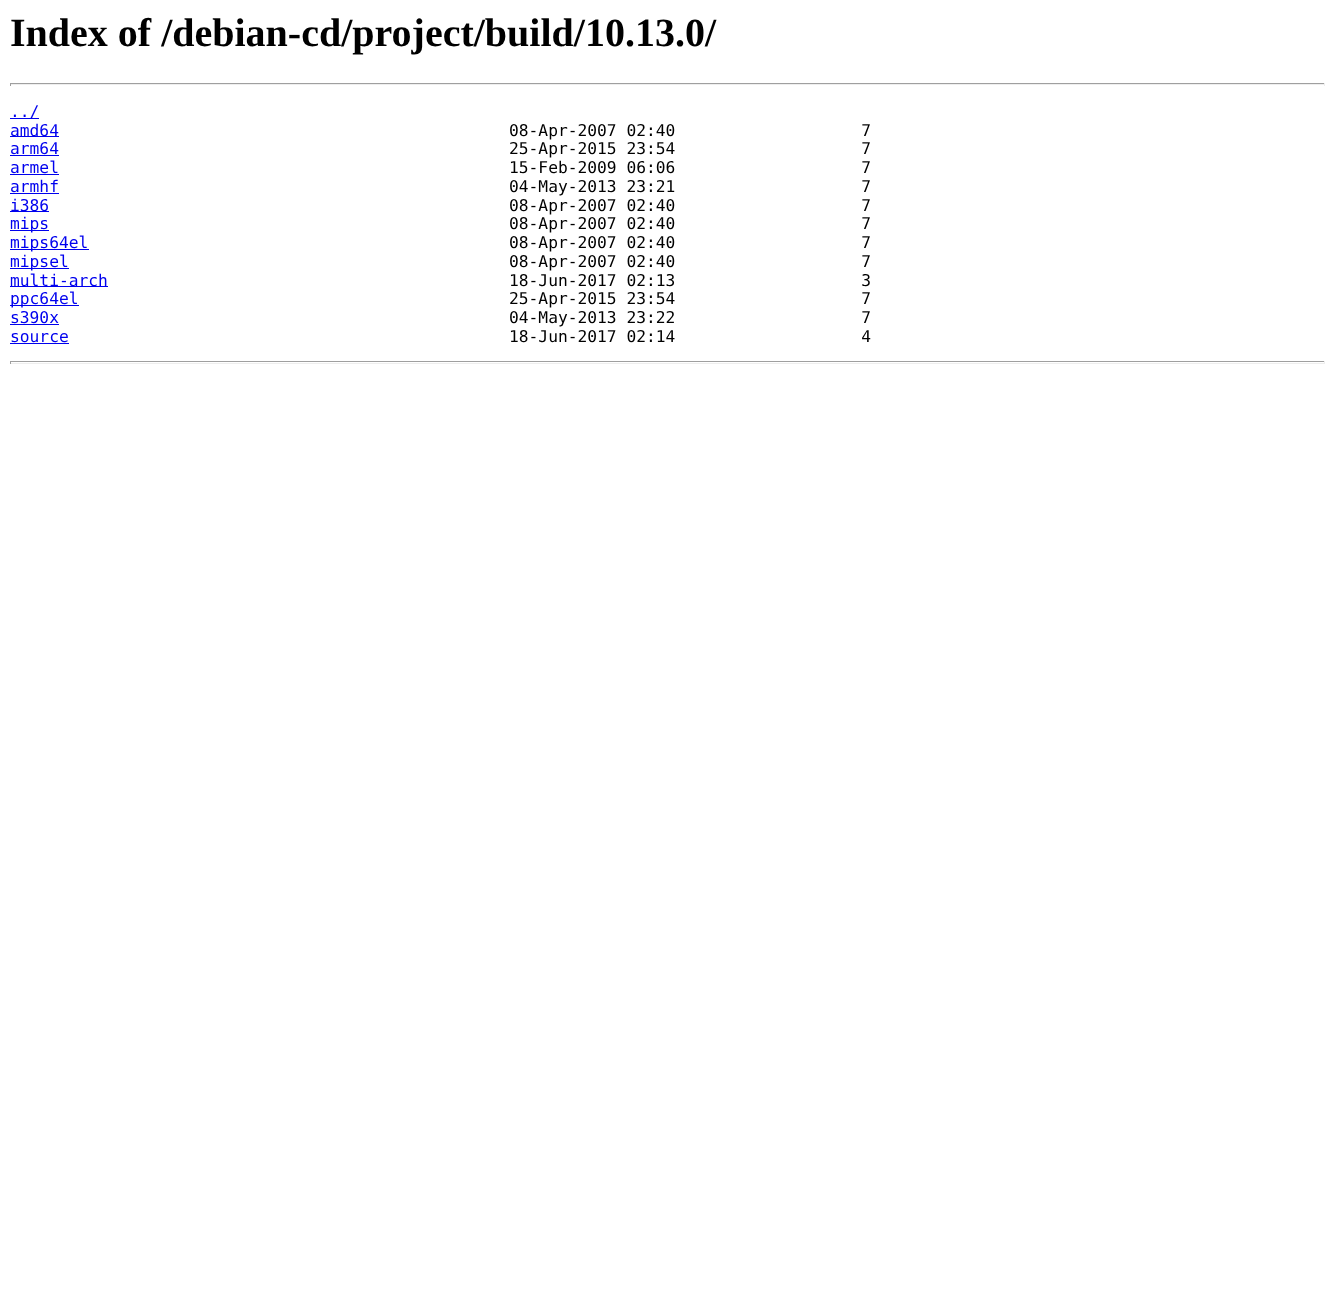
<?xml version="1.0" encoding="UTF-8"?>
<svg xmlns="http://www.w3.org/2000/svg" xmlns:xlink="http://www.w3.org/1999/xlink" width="1335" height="1292">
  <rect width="100%" height="100%" fill="#ffffff" />
  <rect x="10" y="83" width="1315" height="1" fill="#9f9f9f" />
  <rect x="1324" y="83" width="1" height="3" fill="#eeeeee" />
  <rect x="10" y="84" width="1315" height="1" fill="#eeeeee" />
  <rect x="10" y="83" width="1" height="3" fill="#9f9f9f" />
  <rect x="10" y="118" width="29" height="1" fill="#0000ee" />
  <rect x="10" y="136" width="49" height="1" fill="#0000ee" />
  <rect x="10" y="155" width="49" height="1" fill="#0000ee" />
  <rect x="10" y="174" width="49" height="1" fill="#0000ee" />
  <rect x="10" y="193" width="49" height="1" fill="#0000ee" />
  <rect x="10" y="211" width="39" height="1" fill="#0000ee" />
  <rect x="10" y="230" width="39" height="1" fill="#0000ee" />
  <rect x="10" y="249" width="79" height="1" fill="#0000ee" />
  <rect x="10" y="268" width="59" height="1" fill="#0000ee" />
  <rect x="10" y="286" width="98" height="1" fill="#0000ee" />
  <rect x="10" y="305" width="69" height="1" fill="#0000ee" />
  <rect x="10" y="324" width="49" height="1" fill="#0000ee" />
  <rect x="10" y="343" width="59" height="1" fill="#0000ee" />
  <rect x="10" y="361" width="1315" height="1" fill="#9f9f9f" />
  <rect x="1324" y="361" width="1" height="3" fill="#eeeeee" />
  <rect x="10" y="363" width="1315" height="1" fill="#eeeeee" />
  <rect x="10" y="361" width="1" height="3" fill="#9f9f9f" />
  <text x="10" y="46" style="font-family: Liberation Serif; font-size: 40px; font-weight: bold; fill: #000000">Index of /debian-cd/project/build/10.13.0/</text>
  <text x="10" y="117" style="font-family: DejaVu Sans Mono; font-size: 16.25px; fill: #0000ee">../</text>
  <text x="10" y="136" style="font-family: DejaVu Sans Mono; font-size: 16.25px; fill: #0000ee">amd64</text>
  <text x="509" y="136" style="font-family: DejaVu Sans Mono; font-size: 16.25px; fill: #000000" xml:space="preserve">08-Apr-2007 02:40                   7</text>
  <text x="10" y="154" style="font-family: DejaVu Sans Mono; font-size: 16.25px; fill: #0000ee">arm64</text>
  <text x="509" y="154" style="font-family: DejaVu Sans Mono; font-size: 16.25px; fill: #000000" xml:space="preserve">25-Apr-2015 23:54                   7</text>
  <text x="10" y="173" style="font-family: DejaVu Sans Mono; font-size: 16.25px; fill: #0000ee">armel</text>
  <text x="509" y="173" style="font-family: DejaVu Sans Mono; font-size: 16.25px; fill: #000000" xml:space="preserve">15-Feb-2009 06:06                   7</text>
  <text x="10" y="192" style="font-family: DejaVu Sans Mono; font-size: 16.25px; fill: #0000ee">armhf</text>
  <text x="509" y="192" style="font-family: DejaVu Sans Mono; font-size: 16.25px; fill: #000000" xml:space="preserve">04-May-2013 23:21                   7</text>
  <text x="10" y="211" style="font-family: DejaVu Sans Mono; font-size: 16.25px; fill: #0000ee">i386</text>
  <text x="509" y="211" style="font-family: DejaVu Sans Mono; font-size: 16.25px; fill: #000000" xml:space="preserve">08-Apr-2007 02:40                   7</text>
  <text x="10" y="229" style="font-family: DejaVu Sans Mono; font-size: 16.25px; fill: #0000ee">mips</text>
  <text x="509" y="229" style="font-family: DejaVu Sans Mono; font-size: 16.25px; fill: #000000" xml:space="preserve">08-Apr-2007 02:40                   7</text>
  <text x="10" y="248" style="font-family: DejaVu Sans Mono; font-size: 16.25px; fill: #0000ee">mips64el</text>
  <text x="509" y="248" style="font-family: DejaVu Sans Mono; font-size: 16.25px; fill: #000000" xml:space="preserve">08-Apr-2007 02:40                   7</text>
  <text x="10" y="267" style="font-family: DejaVu Sans Mono; font-size: 16.25px; fill: #0000ee">mipsel</text>
  <text x="509" y="267" style="font-family: DejaVu Sans Mono; font-size: 16.25px; fill: #000000" xml:space="preserve">08-Apr-2007 02:40                   7</text>
  <text x="10" y="286" style="font-family: DejaVu Sans Mono; font-size: 16.25px; fill: #0000ee">multi-arch</text>
  <text x="509" y="286" style="font-family: DejaVu Sans Mono; font-size: 16.25px; fill: #000000" xml:space="preserve">18-Jun-2017 02:13                   3</text>
  <text x="10" y="304" style="font-family: DejaVu Sans Mono; font-size: 16.25px; fill: #0000ee">ppc64el</text>
  <text x="509" y="304" style="font-family: DejaVu Sans Mono; font-size: 16.25px; fill: #000000" xml:space="preserve">25-Apr-2015 23:54                   7</text>
  <text x="10" y="323" style="font-family: DejaVu Sans Mono; font-size: 16.25px; fill: #0000ee">s390x</text>
  <text x="509" y="323" style="font-family: DejaVu Sans Mono; font-size: 16.25px; fill: #000000" xml:space="preserve">04-May-2013 23:22                   7</text>
  <text x="10" y="342" style="font-family: DejaVu Sans Mono; font-size: 16.25px; fill: #0000ee">source</text>
  <text x="509" y="342" style="font-family: DejaVu Sans Mono; font-size: 16.25px; fill: #000000" xml:space="preserve">18-Jun-2017 02:14                   4</text>
</svg>
